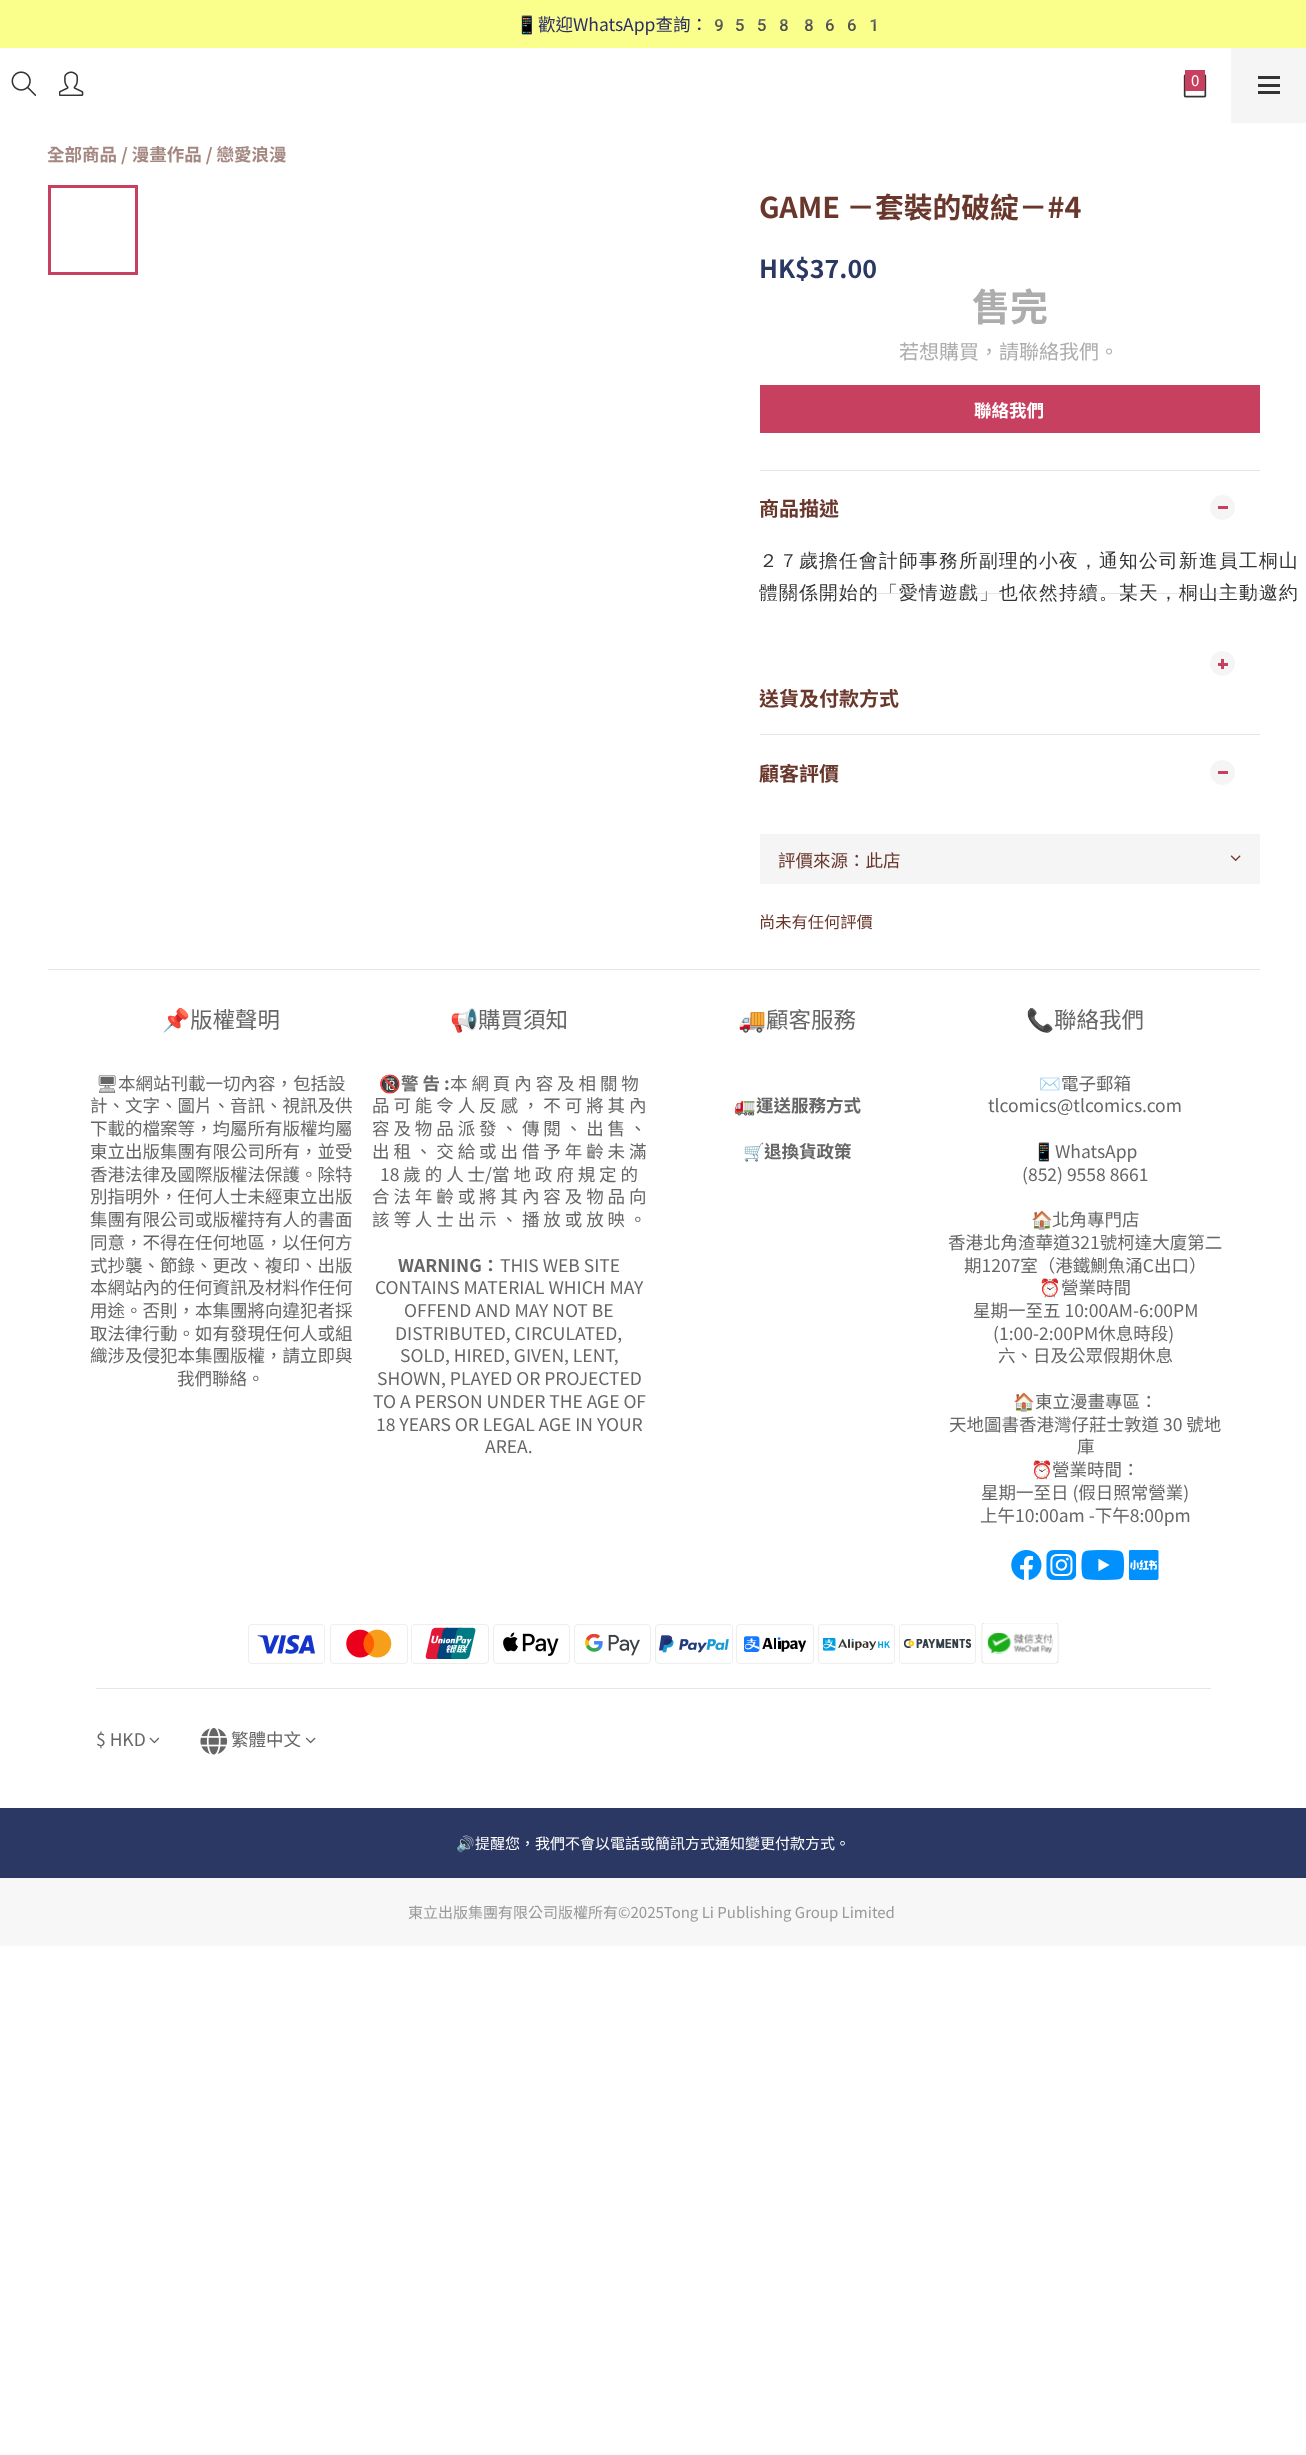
<?xml version="1.0" encoding="UTF-8"?>
<svg xmlns="http://www.w3.org/2000/svg" xmlns:xlink="http://www.w3.org/1999/xlink" width="1306" height="2455">
  <rect width="100%" height="100%" fill="#ffffff" />
  <rect width="1306" height="48" fill="#f9ff8a" />
  <image x="11" y="71" width="25" height="25" xlink:href="image1.png" />
  <image x="59" y="71" width="25" height="25" xlink:href="image2.png" />
  <image x="1183" y="74" width="24" height="24" xlink:href="image3.png" />
  <rect x="1185" y="70" width="20" height="21" fill="#c74060" />
  <rect x="1231" y="48" width="75" height="75" fill="#f5f5f5" />
  <rect x="1258" y="84" width="22" height="3" fill="#333333" />
  <rect x="1258" y="76" width="22" height="3" fill="#333333" />
  <rect x="1258" y="91" width="22" height="3" fill="#333333" />
  <rect x="49.5" y="186.5" width="87" height="87" fill="none" stroke="#c74060" stroke-width="3" />
  <rect x="760" y="385" width="500" height="48" fill="#c74060" />
  <rect x="760" y="470" width="500" height="1" fill="#e6e6e6" />
  <circle cx="1222.5" cy="507.5" r="12.5" fill="#f5f5f5" />
  <rect x="1218" y="506" width="10" height="3" fill="#c74060" />
  <circle cx="1222.5" cy="663.5" r="12.5" fill="#f5f5f5" />
  <rect x="1218" y="663" width="10" height="3" fill="#c74060" />
  <rect x="1221" y="659" width="3" height="10" fill="#c74060" />
  <rect x="760" y="734" width="500" height="1" fill="#e6e6e6" />
  <circle cx="1222.5" cy="772.5" r="12.5" fill="#f5f5f5" />
  <rect x="1218" y="771" width="10" height="3" fill="#c74060" />
  <rect x="760" y="834" width="500" height="50" fill="#f5f5f5" />
  <image x="1230" y="855" width="11" height="6" xlink:href="image4.png" />
  <rect x="48" y="969" width="1212" height="1" fill="#e6e6e6" />
  <image x="1011" y="1550" width="31" height="30" xlink:href="image5.png" />
  <image x="1046" y="1550" width="30" height="30" xlink:href="image6.png" />
  <image x="1081" y="1550" width="44" height="30" xlink:href="image7.png" />
  <image x="1129" y="1550" width="30" height="30" xlink:href="image8.png" />
  <image x="248" y="1624" width="77" height="40" xlink:href="image9.png" />
  <image x="330" y="1624" width="78" height="40" xlink:href="image10.png" />
  <image x="411" y="1624" width="78" height="40" xlink:href="image11.png" />
  <image x="493" y="1624" width="77" height="40" xlink:href="image12.png" />
  <image x="574" y="1624" width="77" height="40" xlink:href="image13.png" />
  <image x="655" y="1624" width="78" height="40" xlink:href="image14.png" />
  <image x="736" y="1624" width="78" height="40" xlink:href="image15.png" />
  <image x="818" y="1624" width="77" height="40" xlink:href="image16.png" />
  <image x="899" y="1624" width="77" height="40" xlink:href="image17.png" />
  <image x="981" y="1623" width="78" height="41" xlink:href="image18.png" />
  <rect x="96" y="1688" width="1115" height="1" fill="#e6e6e6" />
  <image x="149" y="1737" width="11" height="7" xlink:href="image19.png" />
  <image x="200" y="1728" width="28" height="27" xlink:href="image20.png" />
  <image x="305" y="1737" width="11" height="7" xlink:href="image21.png" />
  <rect y="1808" width="1306" height="70" fill="#2b3864" />
  <rect y="1878" width="1306" height="68" fill="#f7f7f7" />
  <text x="516" y="31" style="font-family: Noto Color Emoji; font-size: 17.5px; fill: #2c2d6a">📱</text>
  <text x="538" y="31" style="font-family: Noto Sans TC; font-size: 17.5px; fill: #2c2d6a">歡迎WhatsApp查詢：</text>
  <text x="708" y="31" style="font-family: Noto Color Emoji; font-size: 17.5px; fill: #2c2d6a">9558</text>
  <text x="798" y="31" style="font-family: Noto Color Emoji; font-size: 17.5px; fill: #2c2d6a">8661</text>
  <text x="1191" y="86" style="font-family: Noto Sans TC; font-size: 15px; fill: #ffffff">0</text>
  <text x="47" y="161" style="font-family: Noto Sans TC; font-size: 17.5px; font-weight: bold; fill: #a48780">全部商品 / 漫畫作品 / 戀愛浪漫</text>
  <text x="759" y="218" style="font-family: Noto Sans TC; font-size: 28.75px; font-weight: bold; fill: #6a372c">GAME －套裝的破綻－#4</text>
  <text x="759" y="278" style="font-family: Noto Sans TC; font-size: 25px; font-weight: bold; fill: #2b3864">HK$37.00</text>
  <text x="972" y="321" style="font-family: Noto Sans TC; font-size: 38px; font-weight: bold; fill: #adadad">售完</text>
  <text x="899" y="359" style="font-family: Noto Sans TC; font-size: 20px; fill: #adadad">若想購買，請聯絡我們。</text>
  <text x="974" y="417" style="font-family: Noto Sans TC; font-size: 17.5px; font-weight: bold; fill: #ffffff">聯絡我們</text>
  <text x="759" y="516" style="font-family: Noto Sans TC; font-size: 20px; font-weight: bold; fill: #6a372c">商品描述</text>
  <text x="759" y="567" style="font-family: WenQuanYi Zen Hei; font-size: 18.75px; font-weight: 500; letter-spacing: 1.25px; fill: #333333">２７歲擔任會計師事務所副理的小夜，通知公司新進員工桐山</text>
  <text x="759" y="599" style="font-family: WenQuanYi Zen Hei; font-size: 18.75px; font-weight: 500; letter-spacing: 1.25px; fill: #333333">體關係開始的「愛情遊戲」也依然持續。某天，桐山主動邀約</text>
  <rect x="760" y="593" width="500" height="1" fill="#cccccc" fill-opacity="0.5" />
  <text x="759" y="706" style="font-family: Noto Sans TC; font-size: 20px; font-weight: bold; fill: #6a372c">送貨及付款方式</text>
  <text x="759" y="781" style="font-family: Noto Sans TC; font-size: 20px; font-weight: bold; fill: #6a372c">顧客評價</text>
  <text x="778" y="867" style="font-family: Noto Sans TC; font-size: 17.5px; fill: #6a372c">評價來源：此店</text>
  <text x="759" y="928" style="font-family: Noto Sans TC; font-size: 16.25px; fill: #6a372c">尚未有任何評價</text>
  <text x="162" y="1028" style="font-family: Noto Color Emoji; font-size: 22.5px; fill: #666666">📌</text>
  <text x="190" y="1028" style="font-family: Noto Sans TC; font-size: 22.5px; fill: #666666">版權聲明</text>
  <text x="96" y="1090" style="font-family: Noto Emoji; font-size: 17.5px; fill: #666666">🖥</text>
  <text x="118" y="1090" style="font-family: Noto Sans TC; font-size: 17.5px; fill: #666666">本網站刊載一切內容，包括設</text>
  <text x="90" y="1112" style="font-family: Noto Sans TC; font-size: 17.5px; fill: #666666">計、文字、圖片、音訊、視訊及供</text>
  <text x="90" y="1135" style="font-family: Noto Sans TC; font-size: 17.5px; fill: #666666">下載的檔案等，均屬所有版權均屬</text>
  <text x="90" y="1158" style="font-family: Noto Sans TC; font-size: 17.5px; fill: #666666">東立出版集團有限公司所有，並受</text>
  <text x="90" y="1181" style="font-family: Noto Sans TC; font-size: 17.5px; fill: #666666">香港法律及國際版權法保護。除特</text>
  <text x="90" y="1203" style="font-family: Noto Sans TC; font-size: 17.5px; fill: #666666">別指明外，任何人士未經東立出版</text>
  <text x="90" y="1226" style="font-family: Noto Sans TC; font-size: 17.5px; fill: #666666">集團有限公司或版權持有人的書面</text>
  <text x="90" y="1249" style="font-family: Noto Sans TC; font-size: 17.5px; fill: #666666">同意，不得在任何地區，以任何方</text>
  <text x="90" y="1272" style="font-family: Noto Sans TC; font-size: 17.5px; fill: #666666">式抄襲、節錄、更改、複印、出版</text>
  <text x="90" y="1294" style="font-family: Noto Sans TC; font-size: 17.5px; fill: #666666">本網站內的任何資訊及材料作任何</text>
  <text x="90" y="1317" style="font-family: Noto Sans TC; font-size: 17.5px; fill: #666666">用途。否則，本集團將向違犯者採</text>
  <text x="90" y="1340" style="font-family: Noto Sans TC; font-size: 17.5px; fill: #666666">取法律行動。如有發現任何人或組</text>
  <text x="90" y="1362" style="font-family: Noto Sans TC; font-size: 17.5px; fill: #666666">織涉及侵犯本集團版權，請立即與</text>
  <text x="177" y="1385" style="font-family: Noto Sans TC; font-size: 17.5px; fill: #666666">我們聯絡。</text>
  <text x="450" y="1028" style="font-family: Noto Color Emoji; font-size: 22.5px; fill: #666666">📢</text>
  <text x="478" y="1028" style="font-family: Noto Sans TC; font-size: 22.5px; fill: #666666">購買須知</text>
  <text x="379" y="1090" style="font-family: Noto Color Emoji; font-size: 17.5px; font-weight: bold; fill: #666666">🔞</text>
  <text x="401" y="1090" style="font-family: Noto Sans TC; font-size: 17.5px; font-weight: bold; fill: #666666">警 告 :</text>
  <text x="450" y="1090" style="font-family: Noto Sans TC; font-size: 17.5px; fill: #666666">本 網 頁 內 容 及 相 關 物</text>
  <text x="372" y="1112" style="font-family: Noto Sans TC; font-size: 17.5px; fill: #666666">品 可 能 令 人 反 感 ， 不 可 將 其 內</text>
  <text x="372" y="1135" style="font-family: Noto Sans TC; font-size: 17.5px; fill: #666666">容 及 物 品 派 發 、 傳 閱 、 出 售 、</text>
  <text x="372" y="1158" style="font-family: Noto Sans TC; font-size: 17.5px; fill: #666666">出 租 、 交 給 或 出 借 予 年 齡 未 滿</text>
  <text x="380" y="1181" style="font-family: Noto Sans TC; font-size: 17.5px; fill: #666666">18 歲 的 人 士/當 地 政 府 規 定 的</text>
  <text x="372" y="1203" style="font-family: Noto Sans TC; font-size: 17.5px; fill: #666666">合 法 年 齡 或 將 其 內 容 及 物 品 向</text>
  <text x="372" y="1226" style="font-family: Noto Sans TC; font-size: 17.5px; fill: #666666">該 等 人 士 出 示 、 播 放 或 放 映 。</text>
  <text x="398" y="1272" style="font-family: Noto Sans TC; font-size: 17.5px; font-weight: bold; fill: #666666">WARNING：</text>
  <text x="500" y="1272" style="font-family: Noto Sans TC; font-size: 17.5px; fill: #666666">THIS WEB SITE</text>
  <text x="375" y="1294" style="font-family: Noto Sans TC; font-size: 17.5px; fill: #666666">CONTAINS MATERIAL WHICH MAY</text>
  <text x="404" y="1317" style="font-family: Noto Sans TC; font-size: 17.5px; fill: #666666">OFFEND AND MAY NOT BE</text>
  <text x="395" y="1340" style="font-family: Noto Sans TC; font-size: 17.5px; fill: #666666">DISTRIBUTED, CIRCULATED,</text>
  <text x="400" y="1362" style="font-family: Noto Sans TC; font-size: 17.5px; fill: #666666">SOLD, HIRED, GIVEN, LENT,</text>
  <text x="377" y="1385" style="font-family: Noto Sans TC; font-size: 17.5px; fill: #666666">SHOWN, PLAYED OR PROJECTED</text>
  <text x="373" y="1408" style="font-family: Noto Sans TC; font-size: 17.5px; fill: #666666">TO A PERSON UNDER THE AGE OF</text>
  <text x="376" y="1431" style="font-family: Noto Sans TC; font-size: 17.5px; fill: #666666">18 YEARS OR LEGAL AGE IN YOUR</text>
  <text x="485" y="1453" style="font-family: Noto Sans TC; font-size: 17.5px; fill: #666666">AREA.</text>
  <text x="738" y="1028" style="font-family: Noto Color Emoji; font-size: 22.5px; fill: #666666">🚚</text>
  <text x="766" y="1028" style="font-family: Noto Sans TC; font-size: 22.5px; fill: #666666">顧客服務</text>
  <text x="734" y="1112" style="font-family: Noto Color Emoji; font-size: 17.5px; font-weight: bold; fill: #666666">🚛</text>
  <text x="756" y="1112" style="font-family: Noto Sans TC; font-size: 17.5px; font-weight: bold; fill: #666666">運送服務方式</text>
  <text x="743" y="1158" style="font-family: Noto Color Emoji; font-size: 17.5px; font-weight: bold; fill: #666666">🛒</text>
  <text x="764" y="1158" style="font-family: Noto Sans TC; font-size: 17.5px; font-weight: bold; fill: #666666">退換貨政策</text>
  <text x="1026" y="1028" style="font-family: Noto Color Emoji; font-size: 22.5px; fill: #666666">📞</text>
  <text x="1054" y="1028" style="font-family: Noto Sans TC; font-size: 22.5px; fill: #666666">聯絡我們</text>
  <text x="1039" y="1090" style="font-family: Noto Color Emoji; font-size: 17.5px; fill: #666666">✉️</text>
  <text x="1061" y="1090" style="font-family: Noto Sans TC; font-size: 17.5px; fill: #666666">電子郵箱</text>
  <text x="988" y="1112" style="font-family: Noto Sans TC; font-size: 17.5px; fill: #666666">tlcomics@tlcomics.com</text>
  <text x="1033" y="1158" style="font-family: Noto Color Emoji; font-size: 17.5px; fill: #666666">📱</text>
  <text x="1055" y="1158" style="font-family: Noto Sans TC; font-size: 17.5px; fill: #666666">WhatsApp</text>
  <text x="1022" y="1181" style="font-family: Noto Sans TC; font-size: 17.5px; fill: #666666">(852) 9558 8661</text>
  <text x="1031" y="1226" style="font-family: Noto Color Emoji; font-size: 17.5px; fill: #666666">🏠</text>
  <text x="1052" y="1226" style="font-family: Noto Sans TC; font-size: 17.5px; fill: #666666">北角專門店</text>
  <text x="948" y="1249" style="font-family: Noto Sans TC; font-size: 17.5px; fill: #666666">香港北角渣華道321號柯達大廈第二</text>
  <text x="964" y="1272" style="font-family: Noto Sans TC; font-size: 17.5px; fill: #666666">期1207室（港鐵鰂魚涌C出口）</text>
  <text x="1039" y="1294" style="font-family: Noto Color Emoji; font-size: 17.5px; fill: #666666">⏰</text>
  <text x="1061" y="1294" style="font-family: Noto Sans TC; font-size: 17.5px; fill: #666666">營業時間</text>
  <text x="973" y="1317" style="font-family: Noto Sans TC; font-size: 17.5px; fill: #666666">星期一至五 10:00AM-6:00PM</text>
  <text x="993" y="1340" style="font-family: Noto Sans TC; font-size: 17.5px; fill: #666666">(1:00-2:00PM休息時段)</text>
  <text x="998" y="1362" style="font-family: Noto Sans TC; font-size: 17.5px; fill: #666666">六、日及公眾假期休息</text>
  <text x="1013" y="1408" style="font-family: Noto Color Emoji; font-size: 17.5px; fill: #666666">🏠</text>
  <text x="1035" y="1408" style="font-family: Noto Sans TC; font-size: 17.5px; fill: #666666">東立漫畫專區：</text>
  <text x="949" y="1431" style="font-family: Noto Sans TC; font-size: 17.5px; fill: #666666">天地圖書香港灣仔莊士敦道 30 號地</text>
  <text x="1077" y="1453" style="font-family: Noto Sans TC; font-size: 17.5px; fill: #666666">庫</text>
  <text x="1031" y="1476" style="font-family: Noto Color Emoji; font-size: 17.5px; fill: #666666">⏰</text>
  <text x="1052" y="1476" style="font-family: Noto Sans TC; font-size: 17.5px; fill: #666666">營業時間：</text>
  <text x="981" y="1499" style="font-family: Noto Sans TC; font-size: 17.5px; fill: #666666">星期一至日 (假日照常營業)</text>
  <text x="980" y="1522" style="font-family: Noto Sans TC; font-size: 17.5px; fill: #666666">上午10:00am -下午8:00pm</text>
  <text x="96" y="1746" style="font-family: Noto Sans TC; font-size: 17.5px; fill: #666666">$ HKD</text>
  <text x="231" y="1746" style="font-family: Noto Sans TC; font-size: 17.5px; fill: #666666">繁體中文</text>
  <text x="456" y="1849" style="font-family: Noto Color Emoji; font-size: 15px; fill: #ffffff">🔊</text>
  <text x="475" y="1849" style="font-family: Noto Sans TC; font-size: 15px; fill: #ffffff">提醒您，我們不會以電話或簡訊方式通知變更付款方式。</text>
  <text x="408" y="1918" style="font-family: Noto Sans TC; font-size: 15px; fill: #999999">東立出版集團有限公司版權所有©2025Tong Li Publishing Group Limited</text>
</svg>
